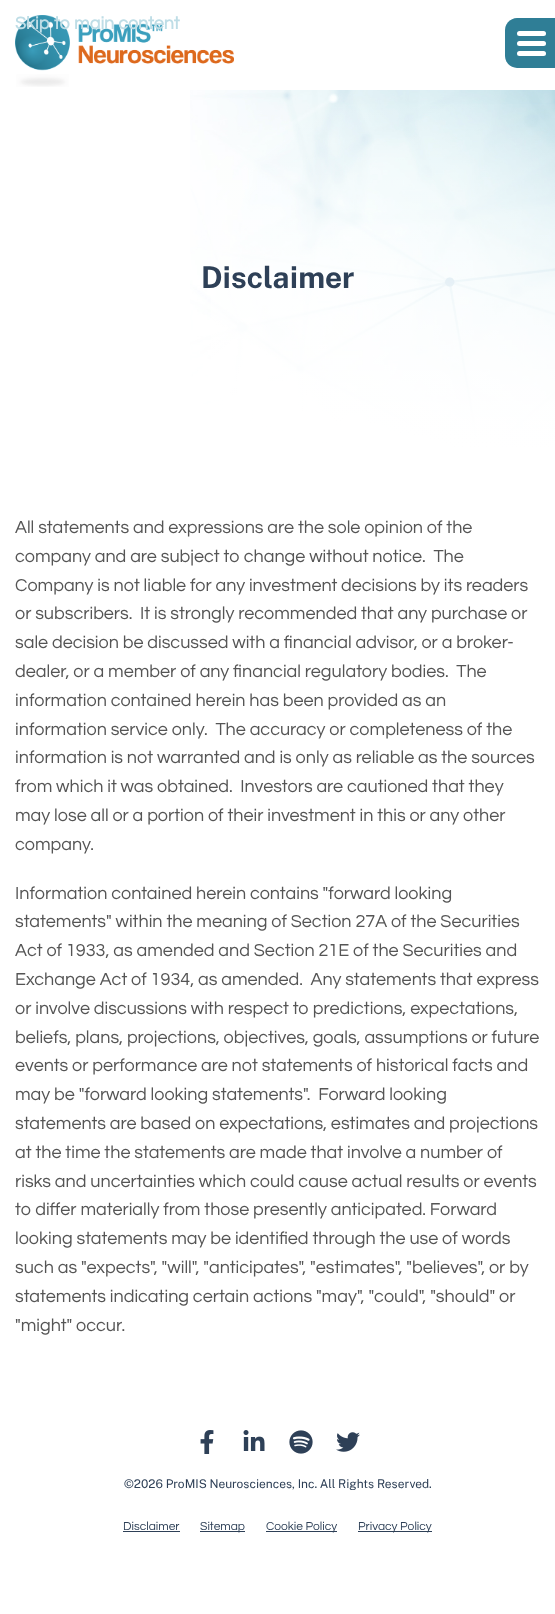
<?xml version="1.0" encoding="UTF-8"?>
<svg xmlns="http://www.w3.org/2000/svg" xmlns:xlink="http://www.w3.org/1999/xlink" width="555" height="1614">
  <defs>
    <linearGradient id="g1" gradientUnits="userSpaceOnUse" x1="278" y1="90" x2="278" y2="464"><stop offset="0" stop-color="#ffffff" stop-opacity="0" /><stop offset="1" stop-color="#ffffff" /></linearGradient>
  </defs>
  <rect width="100%" height="100%" fill="#ffffff" />
  <image x="15" y="15" width="219" height="72" xlink:href="image1.png" />
  <path d="M 517 18 h 38 v 50 h -38 c -6.5 0 -12 -5.5 -12 -12 v -26 c 0 -6.5 5.5 -12 12 -12 z" fill="#2f7e96" />
  <rect x="517" y="31" width="29" height="5" rx="2.5" fill="#ffffff" />
  <rect x="517" y="41" width="29" height="5" rx="2.5" fill="#ffffff" />
  <rect x="517" y="51" width="29" height="5" rx="2.5" fill="#ffffff" />
  <image x="190" y="90" width="365" height="357" xlink:href="image2.png" />
  <rect x="211" y="104" width="344" height="343" fill="url(#g1)" />
  <image x="200" y="1430" width="14" height="24" xlink:href="image3.png" />
  <image x="243" y="1430" width="22" height="21" xlink:href="image4.png" />
  <image x="289" y="1430" width="24" height="24" xlink:href="image5.png" />
  <image x="336" y="1432" width="24" height="20" xlink:href="image6.png" />
  <rect x="123" y="1531" width="57" height="1" fill="#2e4057" />
  <rect x="200" y="1531" width="45" height="1" fill="#2e4057" />
  <rect x="266" y="1531" width="71" height="1" fill="#2e4057" />
  <rect x="358" y="1531" width="74" height="1" fill="#2e4057" />
  <text x="15" y="29" style="font-family: Questrial; font-size: 18px; font-weight: bold; fill: #bedde6">Skip to main content</text>
  <text x="201" y="288" style="font-family: Public Sans; font-size: 30px; font-weight: 100; fill: #2e4057">Disclaimer</text>
  <text x="15" y="533" style="font-family: Questrial; font-size: 18px; fill: #555555">All statements and expressions are the sole opinion of the</text>
  <text x="15" y="562" style="font-family: Questrial; font-size: 18px; fill: #555555" xml:space="preserve">company and are subject to change without notice.  The</text>
  <text x="15" y="591" style="font-family: Questrial; font-size: 18px; fill: #555555">Company is not liable for any investment decisions by its readers</text>
  <text x="15" y="619" style="font-family: Questrial; font-size: 18px; fill: #555555" xml:space="preserve">or subscribers.  It is strongly recommended that any purchase or</text>
  <text x="15" y="648" style="font-family: Questrial; font-size: 18px; fill: #555555">sale decision be discussed with a financial advisor, or a broker-</text>
  <text x="15" y="677" style="font-family: Questrial; font-size: 18px; fill: #555555" xml:space="preserve">dealer, or a member of any financial regulatory bodies.  The</text>
  <text x="15" y="706" style="font-family: Questrial; font-size: 18px; fill: #555555">information contained herein has been provided as an</text>
  <text x="15" y="735" style="font-family: Questrial; font-size: 18px; fill: #555555" xml:space="preserve">information service only.  The accuracy or completeness of the</text>
  <text x="15" y="763" style="font-family: Questrial; font-size: 18px; fill: #555555">information is not warranted and is only as reliable as the sources</text>
  <text x="15" y="792" style="font-family: Questrial; font-size: 18px; fill: #555555" xml:space="preserve">from which it was obtained.  Investors are cautioned that they</text>
  <text x="15" y="821" style="font-family: Questrial; font-size: 18px; fill: #555555">may lose all or a portion of their investment in this or any other</text>
  <text x="15" y="850" style="font-family: Questrial; font-size: 18px; fill: #555555">company.</text>
  <text x="15" y="899" style="font-family: Questrial; font-size: 18px; fill: #555555">Information contained herein contains "forward looking</text>
  <text x="15" y="927" style="font-family: Questrial; font-size: 18px; fill: #555555">statements" within the meaning of Section 27A of the Securities</text>
  <text x="15" y="956" style="font-family: Questrial; font-size: 18px; fill: #555555">Act of 1933, as amended and Section 21E of the Securities and</text>
  <text x="15" y="985" style="font-family: Questrial; font-size: 18px; fill: #555555" xml:space="preserve">Exchange Act of 1934, as amended.  Any statements that express</text>
  <text x="15" y="1014" style="font-family: Questrial; font-size: 18px; fill: #555555">or involve discussions with respect to predictions, expectations,</text>
  <text x="15" y="1043" style="font-family: Questrial; font-size: 18px; fill: #555555">beliefs, plans, projections, objectives, goals, assumptions or future</text>
  <text x="15" y="1071" style="font-family: Questrial; font-size: 18px; fill: #555555">events or performance are not statements of historical facts and</text>
  <text x="15" y="1100" style="font-family: Questrial; font-size: 18px; fill: #555555" xml:space="preserve">may be "forward looking statements".  Forward looking</text>
  <text x="15" y="1129" style="font-family: Questrial; font-size: 18px; fill: #555555">statements are based on expectations, estimates and projections</text>
  <text x="15" y="1158" style="font-family: Questrial; font-size: 18px; fill: #555555">at the time the statements are made that involve a number of</text>
  <text x="15" y="1187" style="font-family: Questrial; font-size: 18px; fill: #555555">risks and uncertainties which could cause actual results or events</text>
  <text x="15" y="1215" style="font-family: Questrial; font-size: 18px; fill: #555555">to differ materially from those presently anticipated. Forward</text>
  <text x="15" y="1244" style="font-family: Questrial; font-size: 18px; fill: #555555">looking statements may be identified through the use of words</text>
  <text x="15" y="1273" style="font-family: Questrial; font-size: 18px; fill: #555555">such as "expects", "will", "anticipates", "estimates", "believes", or by</text>
  <text x="15" y="1302" style="font-family: Questrial; font-size: 18px; fill: #555555">statements indicating certain actions "may", "could", "should" or</text>
  <text x="15" y="1331" style="font-family: Questrial; font-size: 18px; fill: #555555">"might" occur.</text>
  <text x="124" y="1488" style="font-family: 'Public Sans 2'; font-size: 12px; font-weight: 100; fill: #2e4057">©2026 ProMIS Neurosciences, Inc. All Rights Reserved.</text>
  <text x="123" y="1530" style="font-family: Questrial; font-size: 12px; fill: #2e4057">Disclaimer</text>
  <text x="200" y="1530" style="font-family: Questrial; font-size: 12px; fill: #2e4057">Sitemap</text>
  <text x="266" y="1530" style="font-family: Questrial; font-size: 12px; fill: #2e4057">Cookie Policy</text>
  <text x="358" y="1530" style="font-family: Questrial; font-size: 12px; fill: #2e4057">Privacy Policy</text>
</svg>
